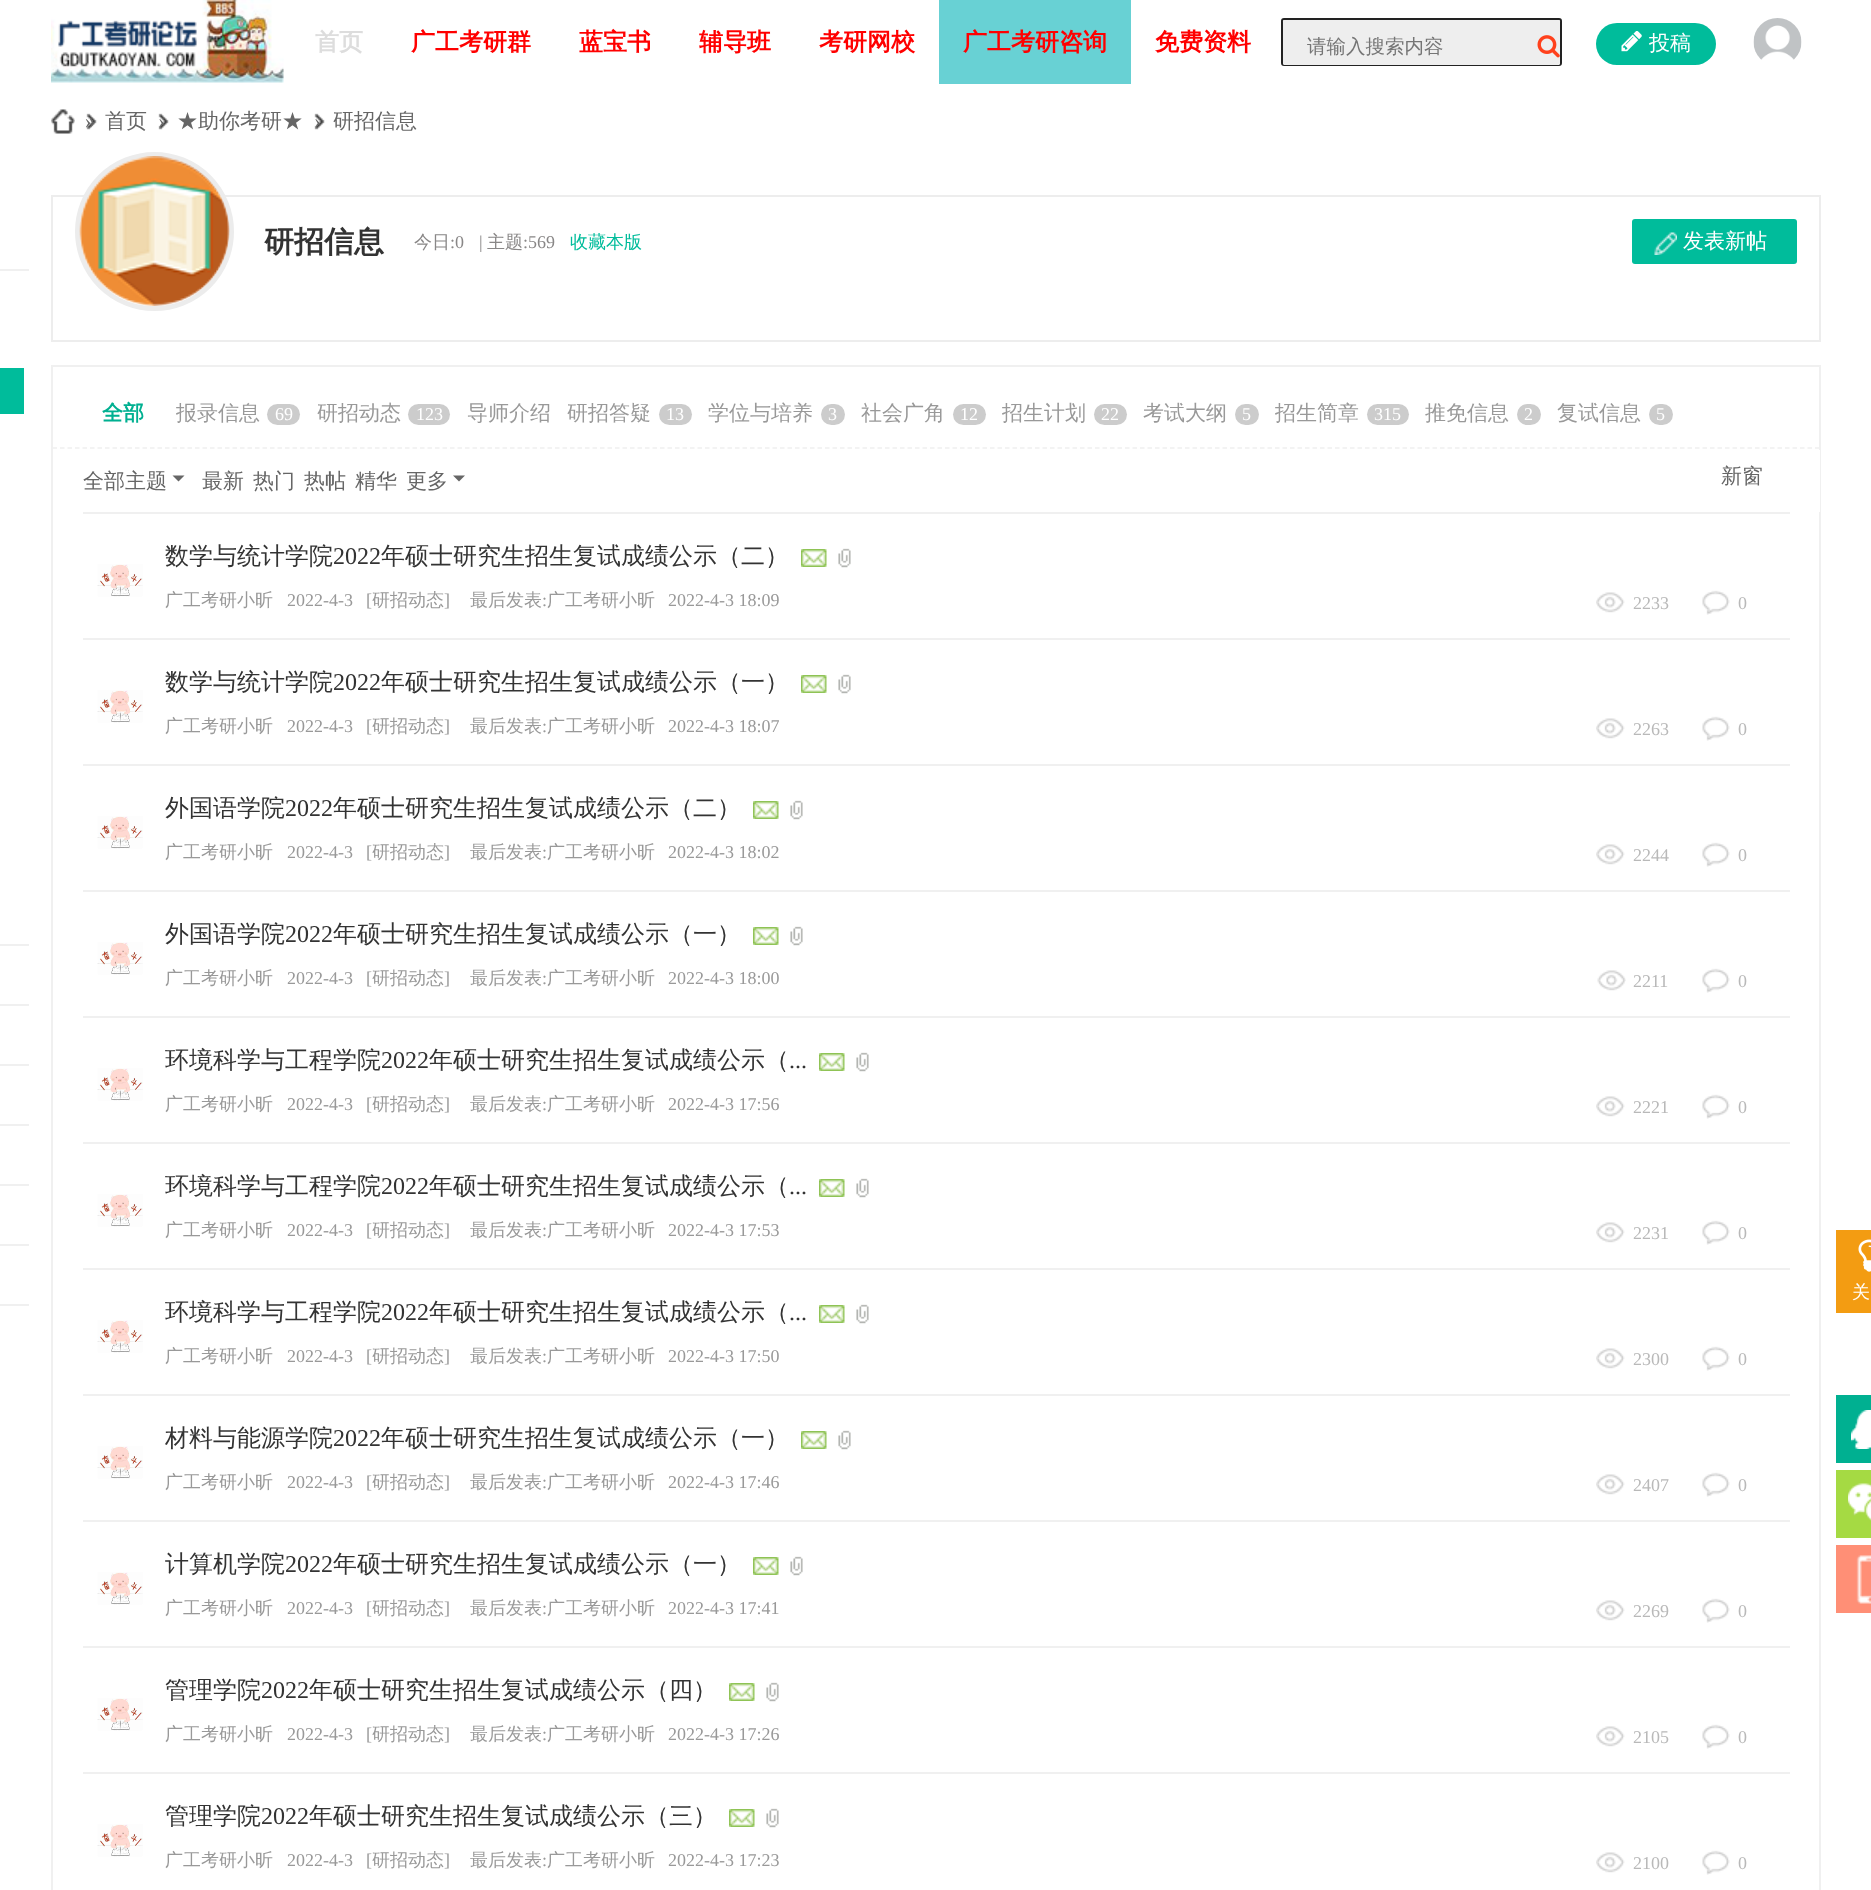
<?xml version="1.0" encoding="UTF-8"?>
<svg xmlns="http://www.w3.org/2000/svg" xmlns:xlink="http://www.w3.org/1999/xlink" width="1871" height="1890">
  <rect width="100%" height="100%" fill="#ffffff" />
  <image x="51" y="0" width="233" height="83" xlink:href="image1.png" />
  <rect x="939" width="192" height="84" fill="#68d1d4" />
  <rect x="1282" y="19" width="279" height="46" rx="2" fill="none" stroke="#222222" stroke-width="2" />
  <rect x="1283" y="20" width="277" height="45" rx="1.5" fill="#eeeeee" />
  <image x="1537" y="35" width="23" height="23" xlink:href="image2.png" />
  <rect x="1596" y="23" width="120" height="42" rx="21" fill="#00bc9b" />
  <image x="1621" y="31" width="21" height="21" xlink:href="image3.png" />
  <image x="1753" y="18" width="49" height="42" xlink:href="image4.png" />
  <image x="51" y="109" width="24" height="25" xlink:href="image5.png" />
  <image x="86" y="113" width="11" height="17" xlink:href="image6.png" />
  <image x="158" y="113" width="11" height="17" xlink:href="image6.png" />
  <image x="314" y="113" width="11" height="17" xlink:href="image6.png" />
  <rect x="52" y="196" width="1768" height="145" fill="none" stroke="#ededed" stroke-width="2" />
  <circle cx="154.5" cy="231.5" r="77" fill="#ffffff" stroke="#ececec" stroke-width="5" />
  <image x="79" y="156" width="151" height="150" xlink:href="image7.png" />
  <rect x="1632" y="219" width="165" height="45" rx="3" fill="#00bc9b" />
  <image x="1654" y="232" width="23" height="23" xlink:href="image8.png" />
  <rect y="269" width="29" height="2" fill="#f0f0f0" />
  <rect y="368" width="24" height="46" fill="#00bc9b" />
  <rect y="944" width="29" height="2" fill="#f0f0f0" />
  <rect y="1004" width="29" height="2" fill="#f0f0f0" />
  <rect y="1064" width="29" height="2" fill="#f0f0f0" />
  <rect y="1124" width="29" height="2" fill="#f0f0f0" />
  <rect y="1184" width="29" height="2" fill="#f0f0f0" />
  <rect y="1244" width="29" height="2" fill="#f0f0f0" />
  <rect y="1304" width="29" height="2" fill="#f0f0f0" />
  <rect x="52" y="366" width="1768" height="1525" fill="none" stroke="#f0f0f0" stroke-width="2" />
  <path d="M 52.5 448 h 1767" fill="none" stroke="#f0f0f0" stroke-width="1.5" stroke-dasharray="4.5 3" />
  <rect x="267" y="404" width="33" height="21" rx="10.5" fill="#cccccc" />
  <rect x="408" y="404" width="42" height="21" rx="10.5" fill="#cccccc" />
  <rect x="659" y="404" width="33" height="21" rx="10.5" fill="#cccccc" />
  <rect x="821" y="404" width="24" height="21" rx="10.5" fill="#cccccc" />
  <rect x="953" y="404" width="33" height="21" rx="10.5" fill="#cccccc" />
  <rect x="1094" y="404" width="33" height="21" rx="10.5" fill="#cccccc" />
  <rect x="1235" y="404" width="24" height="21" rx="10.5" fill="#cccccc" />
  <rect x="1367" y="404" width="42" height="21" rx="10.5" fill="#cccccc" />
  <rect x="1517" y="404" width="24" height="21" rx="10.5" fill="#cccccc" />
  <rect x="1649" y="404" width="24" height="21" rx="10.5" fill="#cccccc" />
  <rect x="1819" y="450" width="1" height="62" fill="#ffffff" />
  <path d="M 172.5 475.5 h 12 l -6 6 z" fill="#666666" />
  <path d="M 453 475.5 h 12 l -6 6 z" fill="#666666" />
  <rect x="83" y="512" width="1707" height="2" fill="#f0f0f0" />
  <image x="801" y="549" width="26" height="18" xlink:href="image9.png" />
  <image x="838" y="548" width="13" height="20" xlink:href="image10.png" />
  <image x="1596" y="592" width="29" height="21" xlink:href="image11.png" />
  <image x="1702" y="590" width="28" height="25" xlink:href="image12.png" />
  <rect x="83" y="638" width="1707" height="2" fill="#f0f0f0" />
  <image x="97" y="564" width="46" height="33" xlink:href="image13.png" />
  <image x="801" y="675" width="26" height="18" xlink:href="image9.png" />
  <image x="838" y="674" width="13" height="20" xlink:href="image10.png" />
  <image x="1596" y="718" width="29" height="21" xlink:href="image11.png" />
  <image x="1702" y="716" width="28" height="25" xlink:href="image12.png" />
  <rect x="83" y="764" width="1707" height="2" fill="#f0f0f0" />
  <image x="97" y="690" width="46" height="33" xlink:href="image13.png" />
  <image x="753" y="801" width="26" height="18" xlink:href="image14.png" />
  <image x="790" y="800" width="13" height="20" xlink:href="image10.png" />
  <image x="1596" y="844" width="29" height="21" xlink:href="image11.png" />
  <image x="1702" y="842" width="28" height="25" xlink:href="image12.png" />
  <rect x="83" y="890" width="1707" height="2" fill="#f0f0f0" />
  <image x="97" y="816" width="46" height="33" xlink:href="image13.png" />
  <image x="753" y="927" width="26" height="18" xlink:href="image14.png" />
  <image x="790" y="926" width="13" height="20" xlink:href="image10.png" />
  <image x="1597" y="970" width="29" height="21" xlink:href="image15.png" />
  <image x="1702" y="968" width="28" height="25" xlink:href="image12.png" />
  <rect x="83" y="1016" width="1707" height="2" fill="#f0f0f0" />
  <image x="97" y="942" width="46" height="33" xlink:href="image13.png" />
  <image x="819" y="1053" width="26" height="18" xlink:href="image9.png" />
  <image x="856" y="1052" width="13" height="20" xlink:href="image10.png" />
  <image x="1596" y="1096" width="29" height="21" xlink:href="image11.png" />
  <image x="1702" y="1094" width="28" height="25" xlink:href="image12.png" />
  <rect x="83" y="1142" width="1707" height="2" fill="#f0f0f0" />
  <image x="97" y="1068" width="46" height="33" xlink:href="image13.png" />
  <image x="819" y="1179" width="26" height="18" xlink:href="image9.png" />
  <image x="856" y="1178" width="13" height="20" xlink:href="image10.png" />
  <image x="1596" y="1222" width="29" height="21" xlink:href="image11.png" />
  <image x="1702" y="1220" width="28" height="25" xlink:href="image12.png" />
  <rect x="83" y="1268" width="1707" height="2" fill="#f0f0f0" />
  <image x="97" y="1194" width="46" height="33" xlink:href="image13.png" />
  <image x="819" y="1305" width="26" height="18" xlink:href="image9.png" />
  <image x="856" y="1304" width="13" height="20" xlink:href="image10.png" />
  <image x="1596" y="1348" width="29" height="21" xlink:href="image11.png" />
  <image x="1702" y="1346" width="28" height="25" xlink:href="image12.png" />
  <rect x="83" y="1394" width="1707" height="2" fill="#f0f0f0" />
  <image x="97" y="1320" width="46" height="33" xlink:href="image13.png" />
  <image x="801" y="1431" width="26" height="18" xlink:href="image9.png" />
  <image x="838" y="1430" width="13" height="20" xlink:href="image10.png" />
  <image x="1596" y="1474" width="29" height="21" xlink:href="image11.png" />
  <image x="1702" y="1472" width="28" height="25" xlink:href="image12.png" />
  <rect x="83" y="1520" width="1707" height="2" fill="#f0f0f0" />
  <image x="97" y="1446" width="46" height="33" xlink:href="image13.png" />
  <image x="753" y="1557" width="26" height="18" xlink:href="image14.png" />
  <image x="790" y="1556" width="13" height="20" xlink:href="image10.png" />
  <image x="1596" y="1600" width="29" height="21" xlink:href="image11.png" />
  <image x="1702" y="1598" width="28" height="25" xlink:href="image12.png" />
  <rect x="83" y="1646" width="1707" height="2" fill="#f0f0f0" />
  <image x="97" y="1572" width="46" height="33" xlink:href="image13.png" />
  <image x="729" y="1683" width="26" height="18" xlink:href="image16.png" />
  <image x="766" y="1682" width="13" height="20" xlink:href="image10.png" />
  <image x="1596" y="1726" width="29" height="21" xlink:href="image11.png" />
  <image x="1702" y="1724" width="28" height="25" xlink:href="image12.png" />
  <rect x="83" y="1772" width="1707" height="2" fill="#f0f0f0" />
  <image x="97" y="1698" width="46" height="33" xlink:href="image13.png" />
  <image x="97" y="1824" width="46" height="33" xlink:href="image13.png" />
  <image x="729" y="1809" width="26" height="18" xlink:href="image16.png" />
  <image x="766" y="1808" width="13" height="20" xlink:href="image10.png" />
  <image x="1596" y="1852" width="29" height="21" xlink:href="image11.png" />
  <image x="1702" y="1850" width="28" height="25" xlink:href="image12.png" />
  <rect x="1836" y="1230" width="35" height="83" fill="#f39c12" />
  <image x="1858" y="1239" width="13" height="33" xlink:href="image17.png" />
  <rect x="1836" y="1395" width="35" height="68" fill="#00b091" />
  <image x="1851" y="1410" width="20" height="39" xlink:href="image18.png" />
  <rect x="1836" y="1470" width="35" height="68" fill="#a5da43" />
  <image x="1848" y="1483" width="23" height="38" xlink:href="image19.png" />
  <rect x="1836" y="1545" width="35" height="68" fill="#ff8f76" />
  <image x="1856" y="1555" width="15" height="49" xlink:href="image20.png" />
  <text x="315" y="50" style="font-family: WenQuanYi Zen Hei; font-size: 24px; font-weight: bold; fill: #dddddd">首页</text>
  <text x="411" y="50" style="font-family: WenQuanYi Zen Hei; font-size: 24px; font-weight: bold; fill: #ff0000">广工考研群</text>
  <text x="579" y="50" style="font-family: WenQuanYi Zen Hei; font-size: 24px; font-weight: bold; fill: #ff0000">蓝宝书</text>
  <text x="699" y="50" style="font-family: WenQuanYi Zen Hei; font-size: 24px; font-weight: bold; fill: #ff0000">辅导班</text>
  <text x="819" y="50" style="font-family: WenQuanYi Zen Hei; font-size: 24px; font-weight: bold; fill: #ff0000">考研网校</text>
  <text x="963" y="50" style="font-family: WenQuanYi Zen Hei; font-size: 24px; font-weight: bold; fill: #ff0000">广工考研咨询</text>
  <text x="1155" y="50" style="font-family: WenQuanYi Zen Hei; font-size: 24px; font-weight: bold; fill: #ff0000">免费资料</text>
  <text x="1307" y="53" style="font-family: WenQuanYi Zen Hei; font-size: 19.5px; font-weight: 500; fill: #757575">请输入搜索内容</text>
  <text x="1649" y="50" style="font-family: WenQuanYi Zen Hei; font-size: 21px; font-weight: 500; fill: #ffffff">投稿</text>
  <text x="85" y="128" style="font-family: Liberation Serif; font-size: 21px; fill: #666666">»</text>
  <text x="105" y="128" style="font-family: WenQuanYi Zen Hei; font-size: 21px; font-weight: 500; fill: #666666">首页</text>
  <text x="158" y="128" style="font-family: Liberation Serif; font-size: 21px; fill: #666666">›</text>
  <text x="177" y="128" style="font-family: WenQuanYi Zen Hei; font-size: 21px; font-weight: 500; fill: #666666">★助你考研★</text>
  <text x="314" y="128" style="font-family: Liberation Serif; font-size: 21px; fill: #666666">›</text>
  <text x="333" y="128" style="font-family: WenQuanYi Zen Hei; font-size: 21px; font-weight: 500; fill: #666666">研招信息</text>
  <text x="264" y="252" style="font-family: WenQuanYi Zen Hei; font-size: 30px; font-weight: bold; fill: #333333">研招信息</text>
  <text x="414" y="248" style="font-family: WenQuanYi Zen Hei; font-size: 18px; font-weight: 500; fill: #898787">今日</text>
  <text x="450" y="248" style="font-family: Liberation Serif; font-size: 18px; fill: #898787">:0</text>
  <text x="479" y="248" style="font-family: Liberation Serif; font-size: 18px; fill: #898787">|</text>
  <text x="487" y="248" style="font-family: WenQuanYi Zen Hei; font-size: 18px; font-weight: 500; fill: #898787">主题</text>
  <text x="523" y="248" style="font-family: Liberation Serif; font-size: 18px; fill: #898787">:569</text>
  <text x="570" y="248" style="font-family: WenQuanYi Zen Hei; font-size: 18px; font-weight: 500; fill: #00bc9b">收藏本版</text>
  <text x="1683" y="248" style="font-family: WenQuanYi Zen Hei; font-size: 21px; font-weight: 500; fill: #ffffff">发表新帖</text>
  <text x="102" y="420" style="font-family: WenQuanYi Zen Hei; font-size: 21px; font-weight: bold; fill: #00b091">全部</text>
  <text x="176" y="420" style="font-family: WenQuanYi Zen Hei; font-size: 21px; font-weight: 500; fill: #999999">报录信息</text>
  <text x="275" y="420" style="font-family: Liberation Serif; font-size: 18px; fill: #ffffff">69</text>
  <text x="317" y="420" style="font-family: WenQuanYi Zen Hei; font-size: 21px; font-weight: 500; fill: #999999">研招动态</text>
  <text x="416" y="420" style="font-family: Liberation Serif; font-size: 18px; fill: #ffffff">123</text>
  <text x="467" y="420" style="font-family: WenQuanYi Zen Hei; font-size: 21px; font-weight: 500; fill: #999999">导师介绍</text>
  <text x="567" y="420" style="font-family: WenQuanYi Zen Hei; font-size: 21px; font-weight: 500; fill: #999999">研招答疑</text>
  <text x="666" y="420" style="font-family: Liberation Serif; font-size: 18px; fill: #ffffff">13</text>
  <text x="708" y="420" style="font-family: WenQuanYi Zen Hei; font-size: 21px; font-weight: 500; fill: #999999">学位与培养</text>
  <text x="828" y="420" style="font-family: Liberation Serif; font-size: 18px; fill: #ffffff">3</text>
  <text x="861" y="420" style="font-family: WenQuanYi Zen Hei; font-size: 21px; font-weight: 500; fill: #999999">社会广角</text>
  <text x="960" y="420" style="font-family: Liberation Serif; font-size: 18px; fill: #ffffff">12</text>
  <text x="1002" y="420" style="font-family: WenQuanYi Zen Hei; font-size: 21px; font-weight: 500; fill: #999999">招生计划</text>
  <text x="1101" y="420" style="font-family: Liberation Serif; font-size: 18px; fill: #ffffff">22</text>
  <text x="1143" y="420" style="font-family: WenQuanYi Zen Hei; font-size: 21px; font-weight: 500; fill: #999999">考试大纲</text>
  <text x="1242" y="420" style="font-family: Liberation Serif; font-size: 18px; fill: #ffffff">5</text>
  <text x="1275" y="420" style="font-family: WenQuanYi Zen Hei; font-size: 21px; font-weight: 500; fill: #999999">招生简章</text>
  <text x="1374" y="420" style="font-family: Liberation Serif; font-size: 18px; fill: #ffffff">315</text>
  <text x="1425" y="420" style="font-family: WenQuanYi Zen Hei; font-size: 21px; font-weight: 500; fill: #999999">推免信息</text>
  <text x="1524" y="420" style="font-family: Liberation Serif; font-size: 18px; fill: #ffffff">2</text>
  <text x="1557" y="420" style="font-family: WenQuanYi Zen Hei; font-size: 21px; font-weight: 500; fill: #999999">复试信息</text>
  <text x="1656" y="420" style="font-family: Liberation Serif; font-size: 18px; fill: #ffffff">5</text>
  <text x="83" y="488" style="font-family: WenQuanYi Zen Hei; font-size: 21px; font-weight: 500; fill: #666666">全部主题</text>
  <text x="202" y="488" style="font-family: WenQuanYi Zen Hei; font-size: 21px; font-weight: 500; fill: #666666">最新</text>
  <text x="253" y="488" style="font-family: WenQuanYi Zen Hei; font-size: 21px; font-weight: 500; fill: #666666">热门</text>
  <text x="304" y="488" style="font-family: WenQuanYi Zen Hei; font-size: 21px; font-weight: 500; fill: #666666">热帖</text>
  <text x="355" y="488" style="font-family: WenQuanYi Zen Hei; font-size: 21px; font-weight: 500; fill: #666666">精华</text>
  <text x="406" y="488" style="font-family: WenQuanYi Zen Hei; font-size: 21px; font-weight: 500; fill: #666666">更多</text>
  <text x="1721" y="483" style="font-family: WenQuanYi Zen Hei; font-size: 21px; font-weight: 500; fill: #666666">新窗</text>
  <text x="165" y="564" style="font-family: WenQuanYi Zen Hei; font-size: 24px; font-weight: 500; fill: #333333">数学与统计学院</text>
  <text x="333" y="564" style="font-family: Liberation Serif; font-size: 24px; fill: #333333">2022</text>
  <text x="381" y="564" style="font-family: WenQuanYi Zen Hei; font-size: 24px; font-weight: 500; fill: #333333">年硕士研究生招生复试成绩公示（二）</text>
  <text x="165" y="606" style="font-family: WenQuanYi Zen Hei; font-size: 18px; font-weight: 500; fill: #999999">广工考研小昕</text>
  <text x="287" y="606" style="font-family: Liberation Serif; font-size: 18px; fill: #999999">2022-4-3</text>
  <text x="366" y="606" style="font-family: Liberation Serif; font-size: 18px; fill: #999999">[</text>
  <text x="372" y="606" style="font-family: WenQuanYi Zen Hei; font-size: 18px; font-weight: 500; fill: #999999">研招动态</text>
  <text x="444" y="606" style="font-family: Liberation Serif; font-size: 18px; fill: #999999">]</text>
  <text x="470" y="606" style="font-family: WenQuanYi Zen Hei; font-size: 18px; font-weight: 500; fill: #999999">最后发表</text>
  <text x="542" y="606" style="font-family: Liberation Serif; font-size: 18px; fill: #999999">:</text>
  <text x="547" y="606" style="font-family: WenQuanYi Zen Hei; font-size: 18px; font-weight: 500; fill: #999999">广工考研小昕</text>
  <text x="668" y="606" style="font-family: Liberation Serif; font-size: 18px; fill: #999999">2022-4-3 18:09</text>
  <text x="1633" y="609" style="font-family: Liberation Serif; font-size: 18px; fill: #b9b9b9">2233</text>
  <text x="1738" y="609" style="font-family: Liberation Serif; font-size: 18px; fill: #b9b9b9">0</text>
  <text x="165" y="690" style="font-family: WenQuanYi Zen Hei; font-size: 24px; font-weight: 500; fill: #333333">数学与统计学院</text>
  <text x="333" y="690" style="font-family: Liberation Serif; font-size: 24px; fill: #333333">2022</text>
  <text x="381" y="690" style="font-family: WenQuanYi Zen Hei; font-size: 24px; font-weight: 500; fill: #333333">年硕士研究生招生复试成绩公示（一）</text>
  <text x="165" y="732" style="font-family: WenQuanYi Zen Hei; font-size: 18px; font-weight: 500; fill: #999999">广工考研小昕</text>
  <text x="287" y="732" style="font-family: Liberation Serif; font-size: 18px; fill: #999999">2022-4-3</text>
  <text x="366" y="732" style="font-family: Liberation Serif; font-size: 18px; fill: #999999">[</text>
  <text x="372" y="732" style="font-family: WenQuanYi Zen Hei; font-size: 18px; font-weight: 500; fill: #999999">研招动态</text>
  <text x="444" y="732" style="font-family: Liberation Serif; font-size: 18px; fill: #999999">]</text>
  <text x="470" y="732" style="font-family: WenQuanYi Zen Hei; font-size: 18px; font-weight: 500; fill: #999999">最后发表</text>
  <text x="542" y="732" style="font-family: Liberation Serif; font-size: 18px; fill: #999999">:</text>
  <text x="547" y="732" style="font-family: WenQuanYi Zen Hei; font-size: 18px; font-weight: 500; fill: #999999">广工考研小昕</text>
  <text x="668" y="732" style="font-family: Liberation Serif; font-size: 18px; fill: #999999">2022-4-3 18:07</text>
  <text x="1633" y="735" style="font-family: Liberation Serif; font-size: 18px; fill: #b9b9b9">2263</text>
  <text x="1738" y="735" style="font-family: Liberation Serif; font-size: 18px; fill: #b9b9b9">0</text>
  <text x="165" y="816" style="font-family: WenQuanYi Zen Hei; font-size: 24px; font-weight: 500; fill: #333333">外国语学院</text>
  <text x="285" y="816" style="font-family: Liberation Serif; font-size: 24px; fill: #333333">2022</text>
  <text x="333" y="816" style="font-family: WenQuanYi Zen Hei; font-size: 24px; font-weight: 500; fill: #333333">年硕士研究生招生复试成绩公示（二）</text>
  <text x="165" y="858" style="font-family: WenQuanYi Zen Hei; font-size: 18px; font-weight: 500; fill: #999999">广工考研小昕</text>
  <text x="287" y="858" style="font-family: Liberation Serif; font-size: 18px; fill: #999999">2022-4-3</text>
  <text x="366" y="858" style="font-family: Liberation Serif; font-size: 18px; fill: #999999">[</text>
  <text x="372" y="858" style="font-family: WenQuanYi Zen Hei; font-size: 18px; font-weight: 500; fill: #999999">研招动态</text>
  <text x="444" y="858" style="font-family: Liberation Serif; font-size: 18px; fill: #999999">]</text>
  <text x="470" y="858" style="font-family: WenQuanYi Zen Hei; font-size: 18px; font-weight: 500; fill: #999999">最后发表</text>
  <text x="542" y="858" style="font-family: Liberation Serif; font-size: 18px; fill: #999999">:</text>
  <text x="547" y="858" style="font-family: WenQuanYi Zen Hei; font-size: 18px; font-weight: 500; fill: #999999">广工考研小昕</text>
  <text x="668" y="858" style="font-family: Liberation Serif; font-size: 18px; fill: #999999">2022-4-3 18:02</text>
  <text x="1633" y="861" style="font-family: Liberation Serif; font-size: 18px; fill: #b9b9b9">2244</text>
  <text x="1738" y="861" style="font-family: Liberation Serif; font-size: 18px; fill: #b9b9b9">0</text>
  <text x="165" y="942" style="font-family: WenQuanYi Zen Hei; font-size: 24px; font-weight: 500; fill: #333333">外国语学院</text>
  <text x="285" y="942" style="font-family: Liberation Serif; font-size: 24px; fill: #333333">2022</text>
  <text x="333" y="942" style="font-family: WenQuanYi Zen Hei; font-size: 24px; font-weight: 500; fill: #333333">年硕士研究生招生复试成绩公示（一）</text>
  <text x="165" y="984" style="font-family: WenQuanYi Zen Hei; font-size: 18px; font-weight: 500; fill: #999999">广工考研小昕</text>
  <text x="287" y="984" style="font-family: Liberation Serif; font-size: 18px; fill: #999999">2022-4-3</text>
  <text x="366" y="984" style="font-family: Liberation Serif; font-size: 18px; fill: #999999">[</text>
  <text x="372" y="984" style="font-family: WenQuanYi Zen Hei; font-size: 18px; font-weight: 500; fill: #999999">研招动态</text>
  <text x="444" y="984" style="font-family: Liberation Serif; font-size: 18px; fill: #999999">]</text>
  <text x="470" y="984" style="font-family: WenQuanYi Zen Hei; font-size: 18px; font-weight: 500; fill: #999999">最后发表</text>
  <text x="542" y="984" style="font-family: Liberation Serif; font-size: 18px; fill: #999999">:</text>
  <text x="547" y="984" style="font-family: WenQuanYi Zen Hei; font-size: 18px; font-weight: 500; fill: #999999">广工考研小昕</text>
  <text x="668" y="984" style="font-family: Liberation Serif; font-size: 18px; fill: #999999">2022-4-3 18:00</text>
  <text x="1633" y="987" style="font-family: Liberation Serif; font-size: 18px; fill: #b9b9b9">2211</text>
  <text x="1738" y="987" style="font-family: Liberation Serif; font-size: 18px; fill: #b9b9b9">0</text>
  <text x="165" y="1068" style="font-family: WenQuanYi Zen Hei; font-size: 24px; font-weight: 500; fill: #333333">环境科学与工程学院</text>
  <text x="381" y="1068" style="font-family: Liberation Serif; font-size: 24px; fill: #333333">2022</text>
  <text x="429" y="1068" style="font-family: WenQuanYi Zen Hei; font-size: 24px; font-weight: 500; fill: #333333">年硕士研究生招生复试成绩公示（</text>
  <text x="789" y="1068" style="font-family: Liberation Serif; font-size: 24px; fill: #333333">...</text>
  <text x="165" y="1110" style="font-family: WenQuanYi Zen Hei; font-size: 18px; font-weight: 500; fill: #999999">广工考研小昕</text>
  <text x="287" y="1110" style="font-family: Liberation Serif; font-size: 18px; fill: #999999">2022-4-3</text>
  <text x="366" y="1110" style="font-family: Liberation Serif; font-size: 18px; fill: #999999">[</text>
  <text x="372" y="1110" style="font-family: WenQuanYi Zen Hei; font-size: 18px; font-weight: 500; fill: #999999">研招动态</text>
  <text x="444" y="1110" style="font-family: Liberation Serif; font-size: 18px; fill: #999999">]</text>
  <text x="470" y="1110" style="font-family: WenQuanYi Zen Hei; font-size: 18px; font-weight: 500; fill: #999999">最后发表</text>
  <text x="542" y="1110" style="font-family: Liberation Serif; font-size: 18px; fill: #999999">:</text>
  <text x="547" y="1110" style="font-family: WenQuanYi Zen Hei; font-size: 18px; font-weight: 500; fill: #999999">广工考研小昕</text>
  <text x="668" y="1110" style="font-family: Liberation Serif; font-size: 18px; fill: #999999">2022-4-3 17:56</text>
  <text x="1633" y="1113" style="font-family: Liberation Serif; font-size: 18px; fill: #b9b9b9">2221</text>
  <text x="1738" y="1113" style="font-family: Liberation Serif; font-size: 18px; fill: #b9b9b9">0</text>
  <text x="165" y="1194" style="font-family: WenQuanYi Zen Hei; font-size: 24px; font-weight: 500; fill: #333333">环境科学与工程学院</text>
  <text x="381" y="1194" style="font-family: Liberation Serif; font-size: 24px; fill: #333333">2022</text>
  <text x="429" y="1194" style="font-family: WenQuanYi Zen Hei; font-size: 24px; font-weight: 500; fill: #333333">年硕士研究生招生复试成绩公示（</text>
  <text x="789" y="1194" style="font-family: Liberation Serif; font-size: 24px; fill: #333333">...</text>
  <text x="165" y="1236" style="font-family: WenQuanYi Zen Hei; font-size: 18px; font-weight: 500; fill: #999999">广工考研小昕</text>
  <text x="287" y="1236" style="font-family: Liberation Serif; font-size: 18px; fill: #999999">2022-4-3</text>
  <text x="366" y="1236" style="font-family: Liberation Serif; font-size: 18px; fill: #999999">[</text>
  <text x="372" y="1236" style="font-family: WenQuanYi Zen Hei; font-size: 18px; font-weight: 500; fill: #999999">研招动态</text>
  <text x="444" y="1236" style="font-family: Liberation Serif; font-size: 18px; fill: #999999">]</text>
  <text x="470" y="1236" style="font-family: WenQuanYi Zen Hei; font-size: 18px; font-weight: 500; fill: #999999">最后发表</text>
  <text x="542" y="1236" style="font-family: Liberation Serif; font-size: 18px; fill: #999999">:</text>
  <text x="547" y="1236" style="font-family: WenQuanYi Zen Hei; font-size: 18px; font-weight: 500; fill: #999999">广工考研小昕</text>
  <text x="668" y="1236" style="font-family: Liberation Serif; font-size: 18px; fill: #999999">2022-4-3 17:53</text>
  <text x="1633" y="1239" style="font-family: Liberation Serif; font-size: 18px; fill: #b9b9b9">2231</text>
  <text x="1738" y="1239" style="font-family: Liberation Serif; font-size: 18px; fill: #b9b9b9">0</text>
  <text x="165" y="1320" style="font-family: WenQuanYi Zen Hei; font-size: 24px; font-weight: 500; fill: #333333">环境科学与工程学院</text>
  <text x="381" y="1320" style="font-family: Liberation Serif; font-size: 24px; fill: #333333">2022</text>
  <text x="429" y="1320" style="font-family: WenQuanYi Zen Hei; font-size: 24px; font-weight: 500; fill: #333333">年硕士研究生招生复试成绩公示（</text>
  <text x="789" y="1320" style="font-family: Liberation Serif; font-size: 24px; fill: #333333">...</text>
  <text x="165" y="1362" style="font-family: WenQuanYi Zen Hei; font-size: 18px; font-weight: 500; fill: #999999">广工考研小昕</text>
  <text x="287" y="1362" style="font-family: Liberation Serif; font-size: 18px; fill: #999999">2022-4-3</text>
  <text x="366" y="1362" style="font-family: Liberation Serif; font-size: 18px; fill: #999999">[</text>
  <text x="372" y="1362" style="font-family: WenQuanYi Zen Hei; font-size: 18px; font-weight: 500; fill: #999999">研招动态</text>
  <text x="444" y="1362" style="font-family: Liberation Serif; font-size: 18px; fill: #999999">]</text>
  <text x="470" y="1362" style="font-family: WenQuanYi Zen Hei; font-size: 18px; font-weight: 500; fill: #999999">最后发表</text>
  <text x="542" y="1362" style="font-family: Liberation Serif; font-size: 18px; fill: #999999">:</text>
  <text x="547" y="1362" style="font-family: WenQuanYi Zen Hei; font-size: 18px; font-weight: 500; fill: #999999">广工考研小昕</text>
  <text x="668" y="1362" style="font-family: Liberation Serif; font-size: 18px; fill: #999999">2022-4-3 17:50</text>
  <text x="1633" y="1365" style="font-family: Liberation Serif; font-size: 18px; fill: #b9b9b9">2300</text>
  <text x="1738" y="1365" style="font-family: Liberation Serif; font-size: 18px; fill: #b9b9b9">0</text>
  <text x="165" y="1446" style="font-family: WenQuanYi Zen Hei; font-size: 24px; font-weight: 500; fill: #333333">材料与能源学院</text>
  <text x="333" y="1446" style="font-family: Liberation Serif; font-size: 24px; fill: #333333">2022</text>
  <text x="381" y="1446" style="font-family: WenQuanYi Zen Hei; font-size: 24px; font-weight: 500; fill: #333333">年硕士研究生招生复试成绩公示（一）</text>
  <text x="165" y="1488" style="font-family: WenQuanYi Zen Hei; font-size: 18px; font-weight: 500; fill: #999999">广工考研小昕</text>
  <text x="287" y="1488" style="font-family: Liberation Serif; font-size: 18px; fill: #999999">2022-4-3</text>
  <text x="366" y="1488" style="font-family: Liberation Serif; font-size: 18px; fill: #999999">[</text>
  <text x="372" y="1488" style="font-family: WenQuanYi Zen Hei; font-size: 18px; font-weight: 500; fill: #999999">研招动态</text>
  <text x="444" y="1488" style="font-family: Liberation Serif; font-size: 18px; fill: #999999">]</text>
  <text x="470" y="1488" style="font-family: WenQuanYi Zen Hei; font-size: 18px; font-weight: 500; fill: #999999">最后发表</text>
  <text x="542" y="1488" style="font-family: Liberation Serif; font-size: 18px; fill: #999999">:</text>
  <text x="547" y="1488" style="font-family: WenQuanYi Zen Hei; font-size: 18px; font-weight: 500; fill: #999999">广工考研小昕</text>
  <text x="668" y="1488" style="font-family: Liberation Serif; font-size: 18px; fill: #999999">2022-4-3 17:46</text>
  <text x="1633" y="1491" style="font-family: Liberation Serif; font-size: 18px; fill: #b9b9b9">2407</text>
  <text x="1738" y="1491" style="font-family: Liberation Serif; font-size: 18px; fill: #b9b9b9">0</text>
  <text x="165" y="1572" style="font-family: WenQuanYi Zen Hei; font-size: 24px; font-weight: 500; fill: #333333">计算机学院</text>
  <text x="285" y="1572" style="font-family: Liberation Serif; font-size: 24px; fill: #333333">2022</text>
  <text x="333" y="1572" style="font-family: WenQuanYi Zen Hei; font-size: 24px; font-weight: 500; fill: #333333">年硕士研究生招生复试成绩公示（一）</text>
  <text x="165" y="1614" style="font-family: WenQuanYi Zen Hei; font-size: 18px; font-weight: 500; fill: #999999">广工考研小昕</text>
  <text x="287" y="1614" style="font-family: Liberation Serif; font-size: 18px; fill: #999999">2022-4-3</text>
  <text x="366" y="1614" style="font-family: Liberation Serif; font-size: 18px; fill: #999999">[</text>
  <text x="372" y="1614" style="font-family: WenQuanYi Zen Hei; font-size: 18px; font-weight: 500; fill: #999999">研招动态</text>
  <text x="444" y="1614" style="font-family: Liberation Serif; font-size: 18px; fill: #999999">]</text>
  <text x="470" y="1614" style="font-family: WenQuanYi Zen Hei; font-size: 18px; font-weight: 500; fill: #999999">最后发表</text>
  <text x="542" y="1614" style="font-family: Liberation Serif; font-size: 18px; fill: #999999">:</text>
  <text x="547" y="1614" style="font-family: WenQuanYi Zen Hei; font-size: 18px; font-weight: 500; fill: #999999">广工考研小昕</text>
  <text x="668" y="1614" style="font-family: Liberation Serif; font-size: 18px; fill: #999999">2022-4-3 17:41</text>
  <text x="1633" y="1617" style="font-family: Liberation Serif; font-size: 18px; fill: #b9b9b9">2269</text>
  <text x="1738" y="1617" style="font-family: Liberation Serif; font-size: 18px; fill: #b9b9b9">0</text>
  <text x="165" y="1698" style="font-family: WenQuanYi Zen Hei; font-size: 24px; font-weight: 500; fill: #333333">管理学院</text>
  <text x="261" y="1698" style="font-family: Liberation Serif; font-size: 24px; fill: #333333">2022</text>
  <text x="309" y="1698" style="font-family: WenQuanYi Zen Hei; font-size: 24px; font-weight: 500; fill: #333333">年硕士研究生招生复试成绩公示（四）</text>
  <text x="165" y="1740" style="font-family: WenQuanYi Zen Hei; font-size: 18px; font-weight: 500; fill: #999999">广工考研小昕</text>
  <text x="287" y="1740" style="font-family: Liberation Serif; font-size: 18px; fill: #999999">2022-4-3</text>
  <text x="366" y="1740" style="font-family: Liberation Serif; font-size: 18px; fill: #999999">[</text>
  <text x="372" y="1740" style="font-family: WenQuanYi Zen Hei; font-size: 18px; font-weight: 500; fill: #999999">研招动态</text>
  <text x="444" y="1740" style="font-family: Liberation Serif; font-size: 18px; fill: #999999">]</text>
  <text x="470" y="1740" style="font-family: WenQuanYi Zen Hei; font-size: 18px; font-weight: 500; fill: #999999">最后发表</text>
  <text x="542" y="1740" style="font-family: Liberation Serif; font-size: 18px; fill: #999999">:</text>
  <text x="547" y="1740" style="font-family: WenQuanYi Zen Hei; font-size: 18px; font-weight: 500; fill: #999999">广工考研小昕</text>
  <text x="668" y="1740" style="font-family: Liberation Serif; font-size: 18px; fill: #999999">2022-4-3 17:26</text>
  <text x="1633" y="1743" style="font-family: Liberation Serif; font-size: 18px; fill: #b9b9b9">2105</text>
  <text x="1738" y="1743" style="font-family: Liberation Serif; font-size: 18px; fill: #b9b9b9">0</text>
  <text x="165" y="1824" style="font-family: WenQuanYi Zen Hei; font-size: 24px; font-weight: 500; fill: #333333">管理学院</text>
  <text x="261" y="1824" style="font-family: Liberation Serif; font-size: 24px; fill: #333333">2022</text>
  <text x="309" y="1824" style="font-family: WenQuanYi Zen Hei; font-size: 24px; font-weight: 500; fill: #333333">年硕士研究生招生复试成绩公示（三）</text>
  <text x="165" y="1866" style="font-family: WenQuanYi Zen Hei; font-size: 18px; font-weight: 500; fill: #999999">广工考研小昕</text>
  <text x="287" y="1866" style="font-family: Liberation Serif; font-size: 18px; fill: #999999">2022-4-3</text>
  <text x="366" y="1866" style="font-family: Liberation Serif; font-size: 18px; fill: #999999">[</text>
  <text x="372" y="1866" style="font-family: WenQuanYi Zen Hei; font-size: 18px; font-weight: 500; fill: #999999">研招动态</text>
  <text x="444" y="1866" style="font-family: Liberation Serif; font-size: 18px; fill: #999999">]</text>
  <text x="470" y="1866" style="font-family: WenQuanYi Zen Hei; font-size: 18px; font-weight: 500; fill: #999999">最后发表</text>
  <text x="542" y="1866" style="font-family: Liberation Serif; font-size: 18px; fill: #999999">:</text>
  <text x="547" y="1866" style="font-family: WenQuanYi Zen Hei; font-size: 18px; font-weight: 500; fill: #999999">广工考研小昕</text>
  <text x="668" y="1866" style="font-family: Liberation Serif; font-size: 18px; fill: #999999">2022-4-3 17:23</text>
  <text x="1633" y="1869" style="font-family: Liberation Serif; font-size: 18px; fill: #b9b9b9">2100</text>
  <text x="1738" y="1869" style="font-family: Liberation Serif; font-size: 18px; fill: #b9b9b9">0</text>
  <text x="1852" y="1298" style="font-family: WenQuanYi Zen Hei; font-size: 18px; font-weight: 500; fill: #ffffff">关</text>
</svg>
